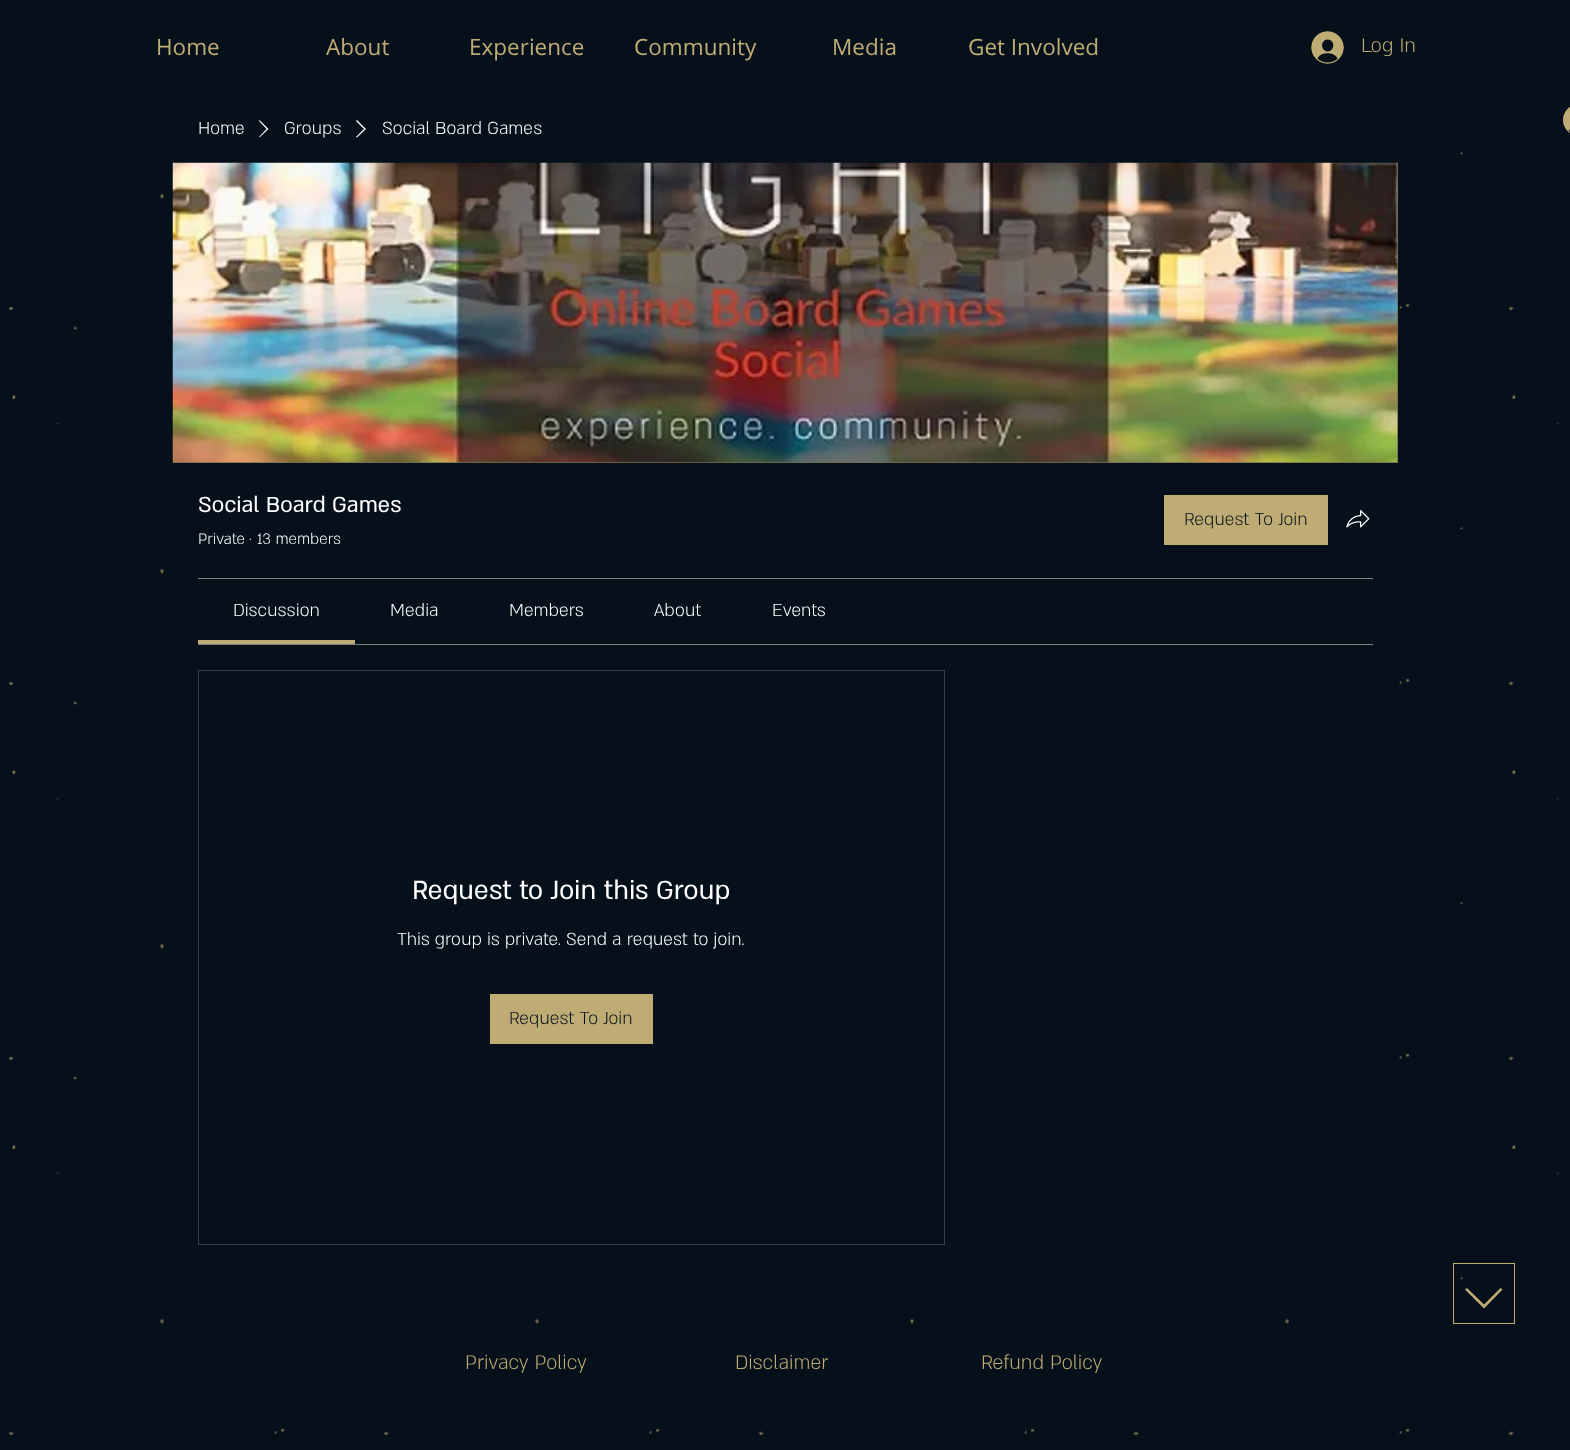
<?xml version="1.0" encoding="UTF-8"?>
<svg xmlns="http://www.w3.org/2000/svg" xmlns:xlink="http://www.w3.org/1999/xlink" width="1570" height="1450">
  <rect width="100%" height="100%" fill="#06101b" />
  <image x="1311" y="31" width="33" height="33" xlink:href="image1.png" />
  <image x="8" y="152" width="1551" height="1284" xlink:href="image5.png" />
  <rect x="229" y="152" width="1129" height="1137" fill="#06101b" />
  <path d="M 259.5 120 l 9 9 l -9 8.5 l -0.5 -0.5 l 7.5 -8 l -7.5 -8 z" fill="#ffffff" fill-rule="evenodd" />
  <path d="M 357 120 l 9 9 l -9 8.5 l -1 -0.5 l 8 -8 l -8 -8 z" fill="#ffffff" fill-rule="evenodd" />
  <rect x="173" y="163" width="1225" height="300" fill="#746e50" />
  <image x="172" y="162" width="1226" height="301" xlink:href="image2.png" />
  <rect x="1164" y="495" width="164" height="50" fill="#beac74" />
  <image x="1346" y="510" width="24" height="18" xlink:href="image3.png" />
  <rect x="198" y="578" width="1175" height="1" fill="#818181" />
  <rect x="198" y="644" width="1175" height="1" fill="#818181" />
  <rect x="198" y="640" width="157" height="4" fill="#beac74" />
  <rect x="198.5" y="670.5" width="746" height="574" fill="none" stroke="#384049" />
  <rect x="490" y="994" width="163" height="50" fill="#beac74" />
  <image x="1563" y="107" width="7" height="26" xlink:href="image4.png" />
  <rect x="1453.5" y="1263.5" width="61" height="60" fill="none" stroke="#beac74" />
  <path d="M 1502.5 1289.5 l -2 -1.5 l -16.5 16.5 l -17 -16.5 l -2 1.5 l 19 19 z" fill="#beac74" />
  <text x="156" y="55" style="font-family: Open Sans; font-size: 22.5px; fill: #beac74">Home</text>
  <text x="326" y="55" style="font-family: Open Sans; font-size: 22.5px; fill: #beac74">About</text>
  <text x="469" y="55" style="font-family: Open Sans; font-size: 22.5px; fill: #beac74">Experience</text>
  <text x="634" y="55" style="font-family: Open Sans; font-size: 22.5px; fill: #beac74">Community</text>
  <text x="832" y="55" style="font-family: Open Sans; font-size: 22.5px; fill: #beac74">Media</text>
  <text x="968" y="55" style="font-family: Open Sans; font-size: 22.5px; fill: #beac74">Get Involved</text>
  <text x="1361" y="52" style="font-family: 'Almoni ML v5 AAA'; font-size: 22.5px; font-weight: 300; fill: #beac74">Log In</text>
  <text x="198" y="134" style="font-family: 'Almoni ML v5 AAA'; font-size: 20px; font-weight: 300; fill: #ffffff">Home</text>
  <text x="284" y="134" style="font-family: 'Almoni ML v5 AAA'; font-size: 20px; font-weight: 300; fill: #ffffff">Groups</text>
  <text x="382" y="134" style="font-family: 'Almoni ML v5 AAA'; font-size: 20px; font-weight: 300; fill: #ffffff">Social Board Games</text>
  <text x="198" y="512" style="font-family: 'Almoni ML v5 AAA'; font-size: 25px; fill: #ffffff">Social Board Games</text>
  <text x="198" y="544" style="font-family: 'Almoni ML v5 AAA'; font-size: 17.5px; font-weight: 300; fill: #ffffff">Private</text>
  <text x="249" y="544" style="font-family: 'Almoni ML v5 AAA'; font-size: 17.5px; font-weight: 300; fill: #ffffff">·</text>
  <text x="257" y="544" style="font-family: 'Almoni ML v5 AAA'; font-size: 17.5px; font-weight: 300; fill: #ffffff">13 members</text>
  <text x="1184" y="525" style="font-family: 'Almoni ML v5 AAA'; font-size: 20px; font-weight: 300; fill: #06101b">Request To Join</text>
  <text x="233" y="616" style="font-family: 'Almoni ML v5 AAA'; font-size: 20px; font-weight: 300; fill: #ffffff">Discussion</text>
  <text x="390" y="616" style="font-family: 'Almoni ML v5 AAA'; font-size: 20px; font-weight: 300; fill: #ffffff">Media</text>
  <text x="509" y="616" style="font-family: 'Almoni ML v5 AAA'; font-size: 20px; font-weight: 300; fill: #ffffff">Members</text>
  <text x="654" y="616" style="font-family: 'Almoni ML v5 AAA'; font-size: 20px; font-weight: 300; fill: #ffffff">About</text>
  <text x="772" y="616" style="font-family: 'Almoni ML v5 AAA'; font-size: 20px; font-weight: 300; fill: #ffffff">Events</text>
  <text x="412" y="899" style="font-family: 'Almoni ML v5 AAA'; font-size: 30px; fill: #ffffff">Request to Join this Group</text>
  <text x="397" y="945" style="font-family: 'Almoni ML v5 AAA'; font-size: 20px; font-weight: 300; fill: #ffffff">This group is private. Send a request to join.</text>
  <text x="509" y="1024" style="font-family: 'Almoni ML v5 AAA'; font-size: 20px; font-weight: 300; fill: #06101b">Request To Join</text>
  <text x="465" y="1369" style="font-family: 'Almoni ML v5 AAA'; font-size: 22.5px; font-weight: 300; fill: #beac74">Privacy Policy</text>
  <text x="735" y="1369" style="font-family: 'Almoni ML v5 AAA'; font-size: 22.5px; font-weight: 300; fill: #beac74">Disclaimer</text>
  <text x="981" y="1369" style="font-family: 'Almoni ML v5 AAA'; font-size: 22.5px; font-weight: 300; fill: #beac74">Refund Policy</text>
</svg>
